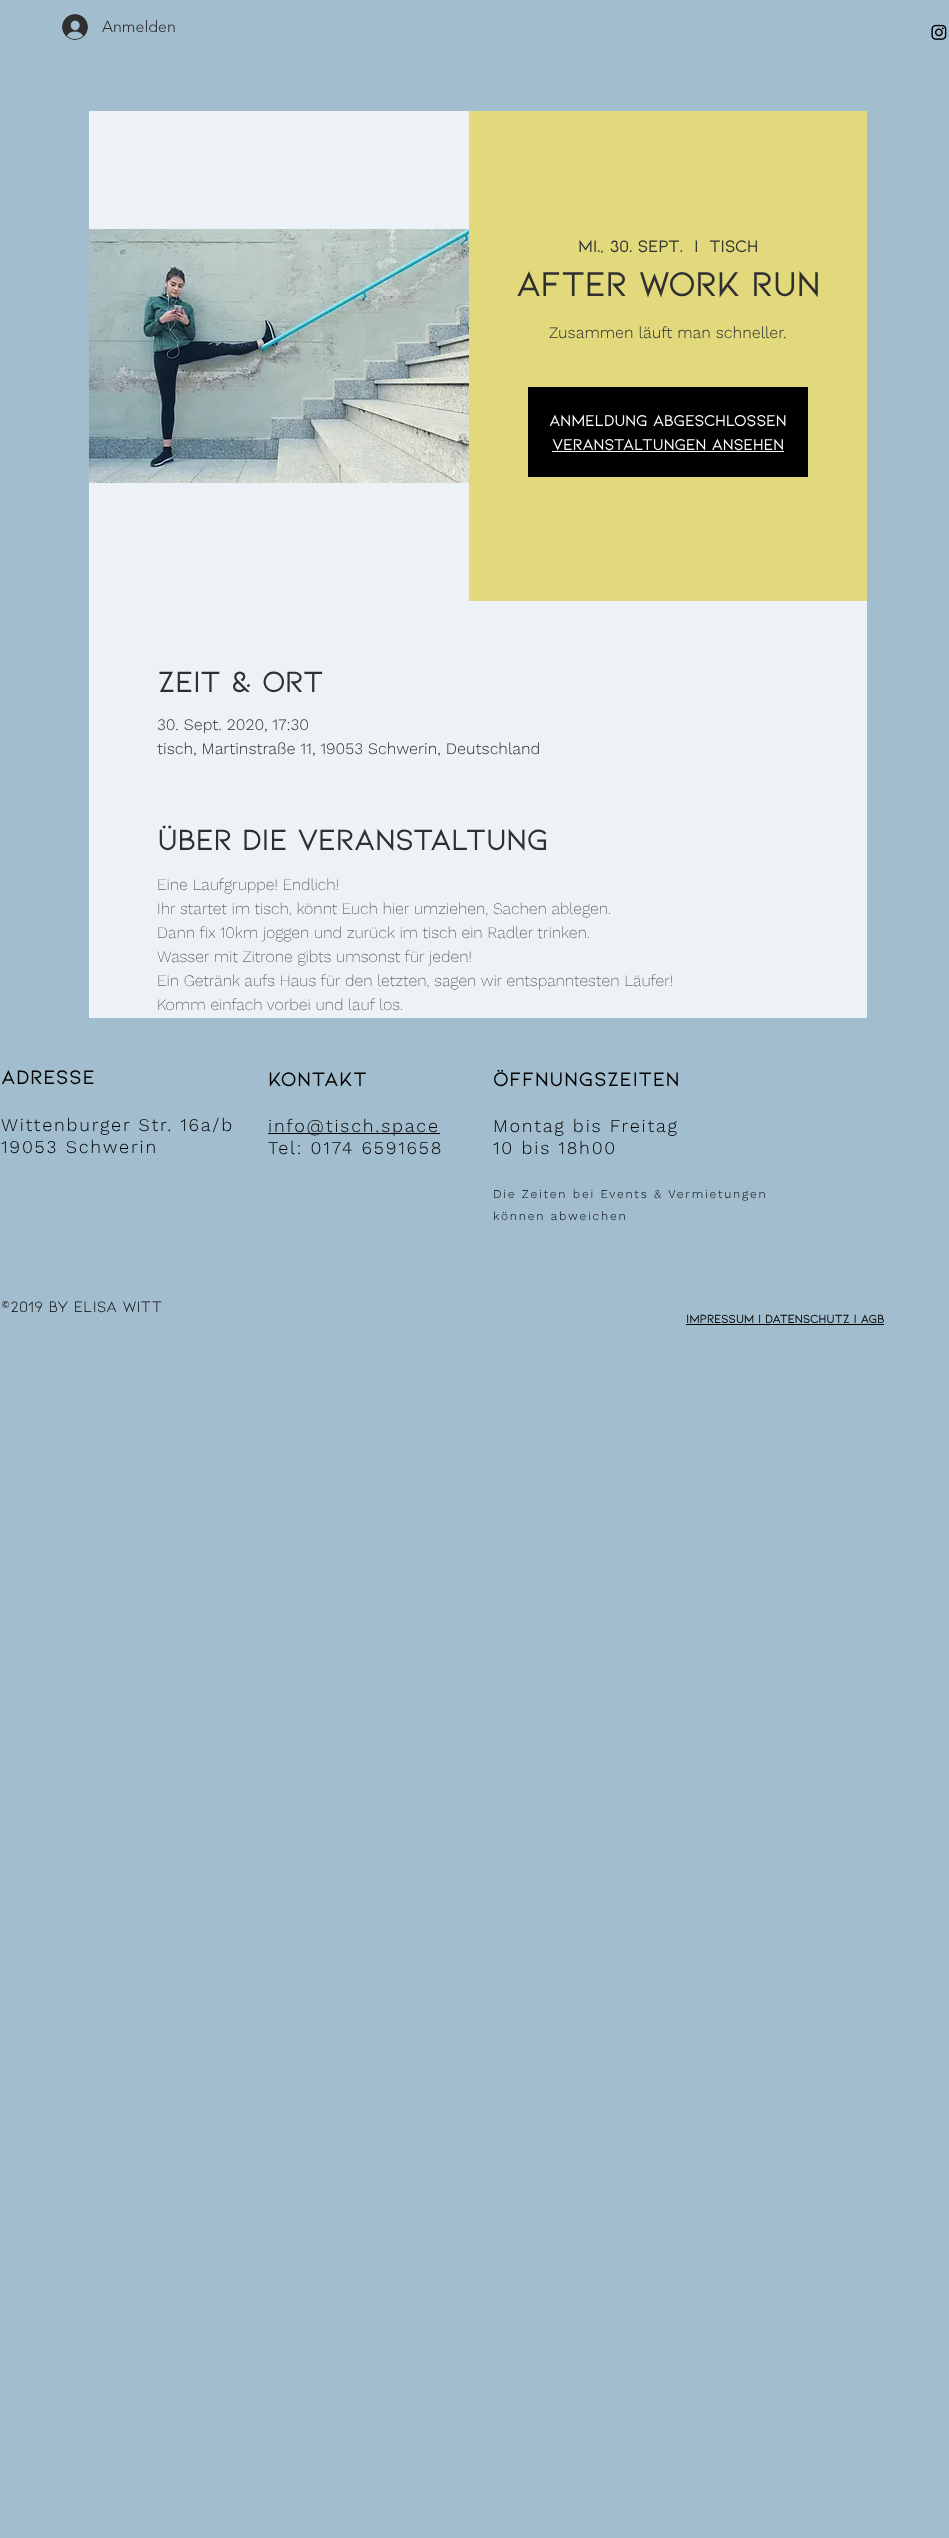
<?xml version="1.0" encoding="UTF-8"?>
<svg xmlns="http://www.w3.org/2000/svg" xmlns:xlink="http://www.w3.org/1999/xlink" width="949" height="2538">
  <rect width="100%" height="100%" fill="#a2bece" />
  <image x="62" y="14" width="26" height="26" xlink:href="image1.png" />
  <image x="931" y="24" width="16" height="16" xlink:href="image2.png" />
  <rect x="89" y="111" width="778" height="907" fill="#ecf2f6" />
  <image x="89" y="229" width="380" height="254" xlink:href="image3.png" />
  <rect x="469" y="111" width="398" height="490" fill="#e1d97b" />
  <rect x="528" y="387" width="280" height="90" fill="#000000" />
  <rect x="552" y="451" width="232" height="1" fill="#ffffff" />
  <rect x="268" y="1133" width="172" height="1" fill="#000000" />
  <rect x="686" y="1324" width="198" height="1" fill="#000000" />
  <text x="102" y="32" style="font-family: 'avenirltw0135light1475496'; font-size: 16px; font-weight: 300; fill: #2f2f30">Anmelden</text>
  <text x="578" y="252" style="font-family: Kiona; font-size: 17px; font-weight: bold; fill: #2f2f30">Mi., 30. Sept.</text>
  <text x="694" y="252" style="font-family: Kiona; font-size: 17px; font-weight: bold; fill: #2f2f30">|</text>
  <text x="709" y="252" style="font-family: Kiona; font-size: 17px; font-weight: bold; fill: #2f2f30">tisch</text>
  <text x="516" y="296" style="font-family: Kiona; font-size: 35px; font-weight: bold; fill: #2f2f30">After Work Run</text>
  <text x="549" y="338" style="font-family: Work Sans; font-size: 16px; font-weight: 300; fill: #2f2f30">Zusammen läuft man schneller.</text>
  <text x="549" y="426" style="font-family: Kiona; font-size: 16px; font-weight: bold; fill: #ffffff">Anmeldung abgeschlossen</text>
  <text x="552" y="450" style="font-family: Kiona; font-size: 16px; font-weight: bold; fill: #ffffff">Veranstaltungen ansehen</text>
  <text x="157" y="692" style="font-family: Kiona; font-size: 30px; font-weight: bold; fill: #2f2f30">Zeit &amp; Ort</text>
  <text x="157" y="730" style="font-family: Work Sans; font-size: 16px; font-weight: 300; fill: #2f2f30">30. Sept. 2020, 17:30</text>
  <text x="157" y="754" style="font-family: Work Sans; font-size: 16px; font-weight: 300; fill: #2f2f30">tisch, Martinstraße 11, 19053 Schwerin, Deutschland</text>
  <text x="157" y="850" style="font-family: Kiona; font-size: 30px; font-weight: bold; fill: #2f2f30">Über die Veranstaltung</text>
  <text x="157" y="890" style="font-family: Work Sans; font-size: 16px; font-weight: 200; fill: #2f2f30">Eine Laufgruppe! Endlich!</text>
  <text x="157" y="914" style="font-family: Work Sans; font-size: 16px; font-weight: 200; fill: #2f2f30">Ihr startet im tisch, könnt Euch hier umziehen, Sachen ablegen.</text>
  <text x="157" y="938" style="font-family: Work Sans; font-size: 16px; font-weight: 200; fill: #2f2f30">Dann fix 10km joggen und zurück im tisch ein Radler trinken.</text>
  <text x="157" y="962" style="font-family: Work Sans; font-size: 16px; font-weight: 200; fill: #2f2f30">Wasser mit Zitrone gibts umsonst für jeden!</text>
  <text x="157" y="986" style="font-family: Work Sans; font-size: 16px; font-weight: 200; fill: #2f2f30">Ein Getränk aufs Haus für den letzten, sagen wir entspanntesten Läufer!</text>
  <text x="157" y="1010" style="font-family: Work Sans; font-size: 16px; font-weight: 200; fill: #2f2f30">Komm einfach vorbei und lauf los.</text>
  <text x="1" y="1084" style="font-family: Kiona; font-size: 20px; font-weight: bold; letter-spacing: 1px; fill: #000000">ADRESSE</text>
  <text x="1" y="1131" style="font-family: Work Sans; font-size: 18px; font-weight: 300; letter-spacing: 1.8px; fill: #000000">Wittenburger Str. 16a/b</text>
  <text x="1" y="1153" style="font-family: Work Sans; font-size: 18px; font-weight: 300; letter-spacing: 1.8px; fill: #000000">19053 Schwerin</text>
  <text x="268" y="1086" style="font-family: Kiona; font-size: 20px; font-weight: bold; letter-spacing: 1px; fill: #000000">KONTAKT</text>
  <text x="268" y="1132" style="font-family: Work Sans; font-size: 18px; font-weight: 300; letter-spacing: 1.8px; fill: #000000">info@tisch.space</text>
  <text x="268" y="1154" style="font-family: Work Sans; font-size: 18px; font-weight: 300; letter-spacing: 1.8px; fill: #000000">Tel: 0174 6591658</text>
  <text x="493" y="1086" style="font-family: Kiona; font-size: 20px; font-weight: bold; letter-spacing: 1px; fill: #000000">Öffnungszeiten</text>
  <text x="493" y="1132" style="font-family: Work Sans; font-size: 18px; font-weight: 300; letter-spacing: 1.8px; fill: #000000">Montag bis Freitag</text>
  <text x="493" y="1154" style="font-family: Work Sans; font-size: 18px; font-weight: 300; letter-spacing: 1.8px; fill: #000000">10 bis 18h00</text>
  <text x="493" y="1198" style="font-family: Work Sans; font-size: 12px; font-weight: 300; letter-spacing: 1.8px; fill: #000000">Die Zeiten bei Events &amp; Vermietungen</text>
  <text x="493" y="1220" style="font-family: Work Sans; font-size: 12px; font-weight: 300; letter-spacing: 1.8px; fill: #000000">können abweichen</text>
  <text x="1" y="1312" style="font-family: Kiona; font-size: 16px; fill: #000000">©2019 by Elisa Witt</text>
  <text x="686" y="1323" style="font-family: Kiona; font-size: 12px; font-weight: bold; fill: #000000">Impressum | Datenschutz | AGB</text>
</svg>
